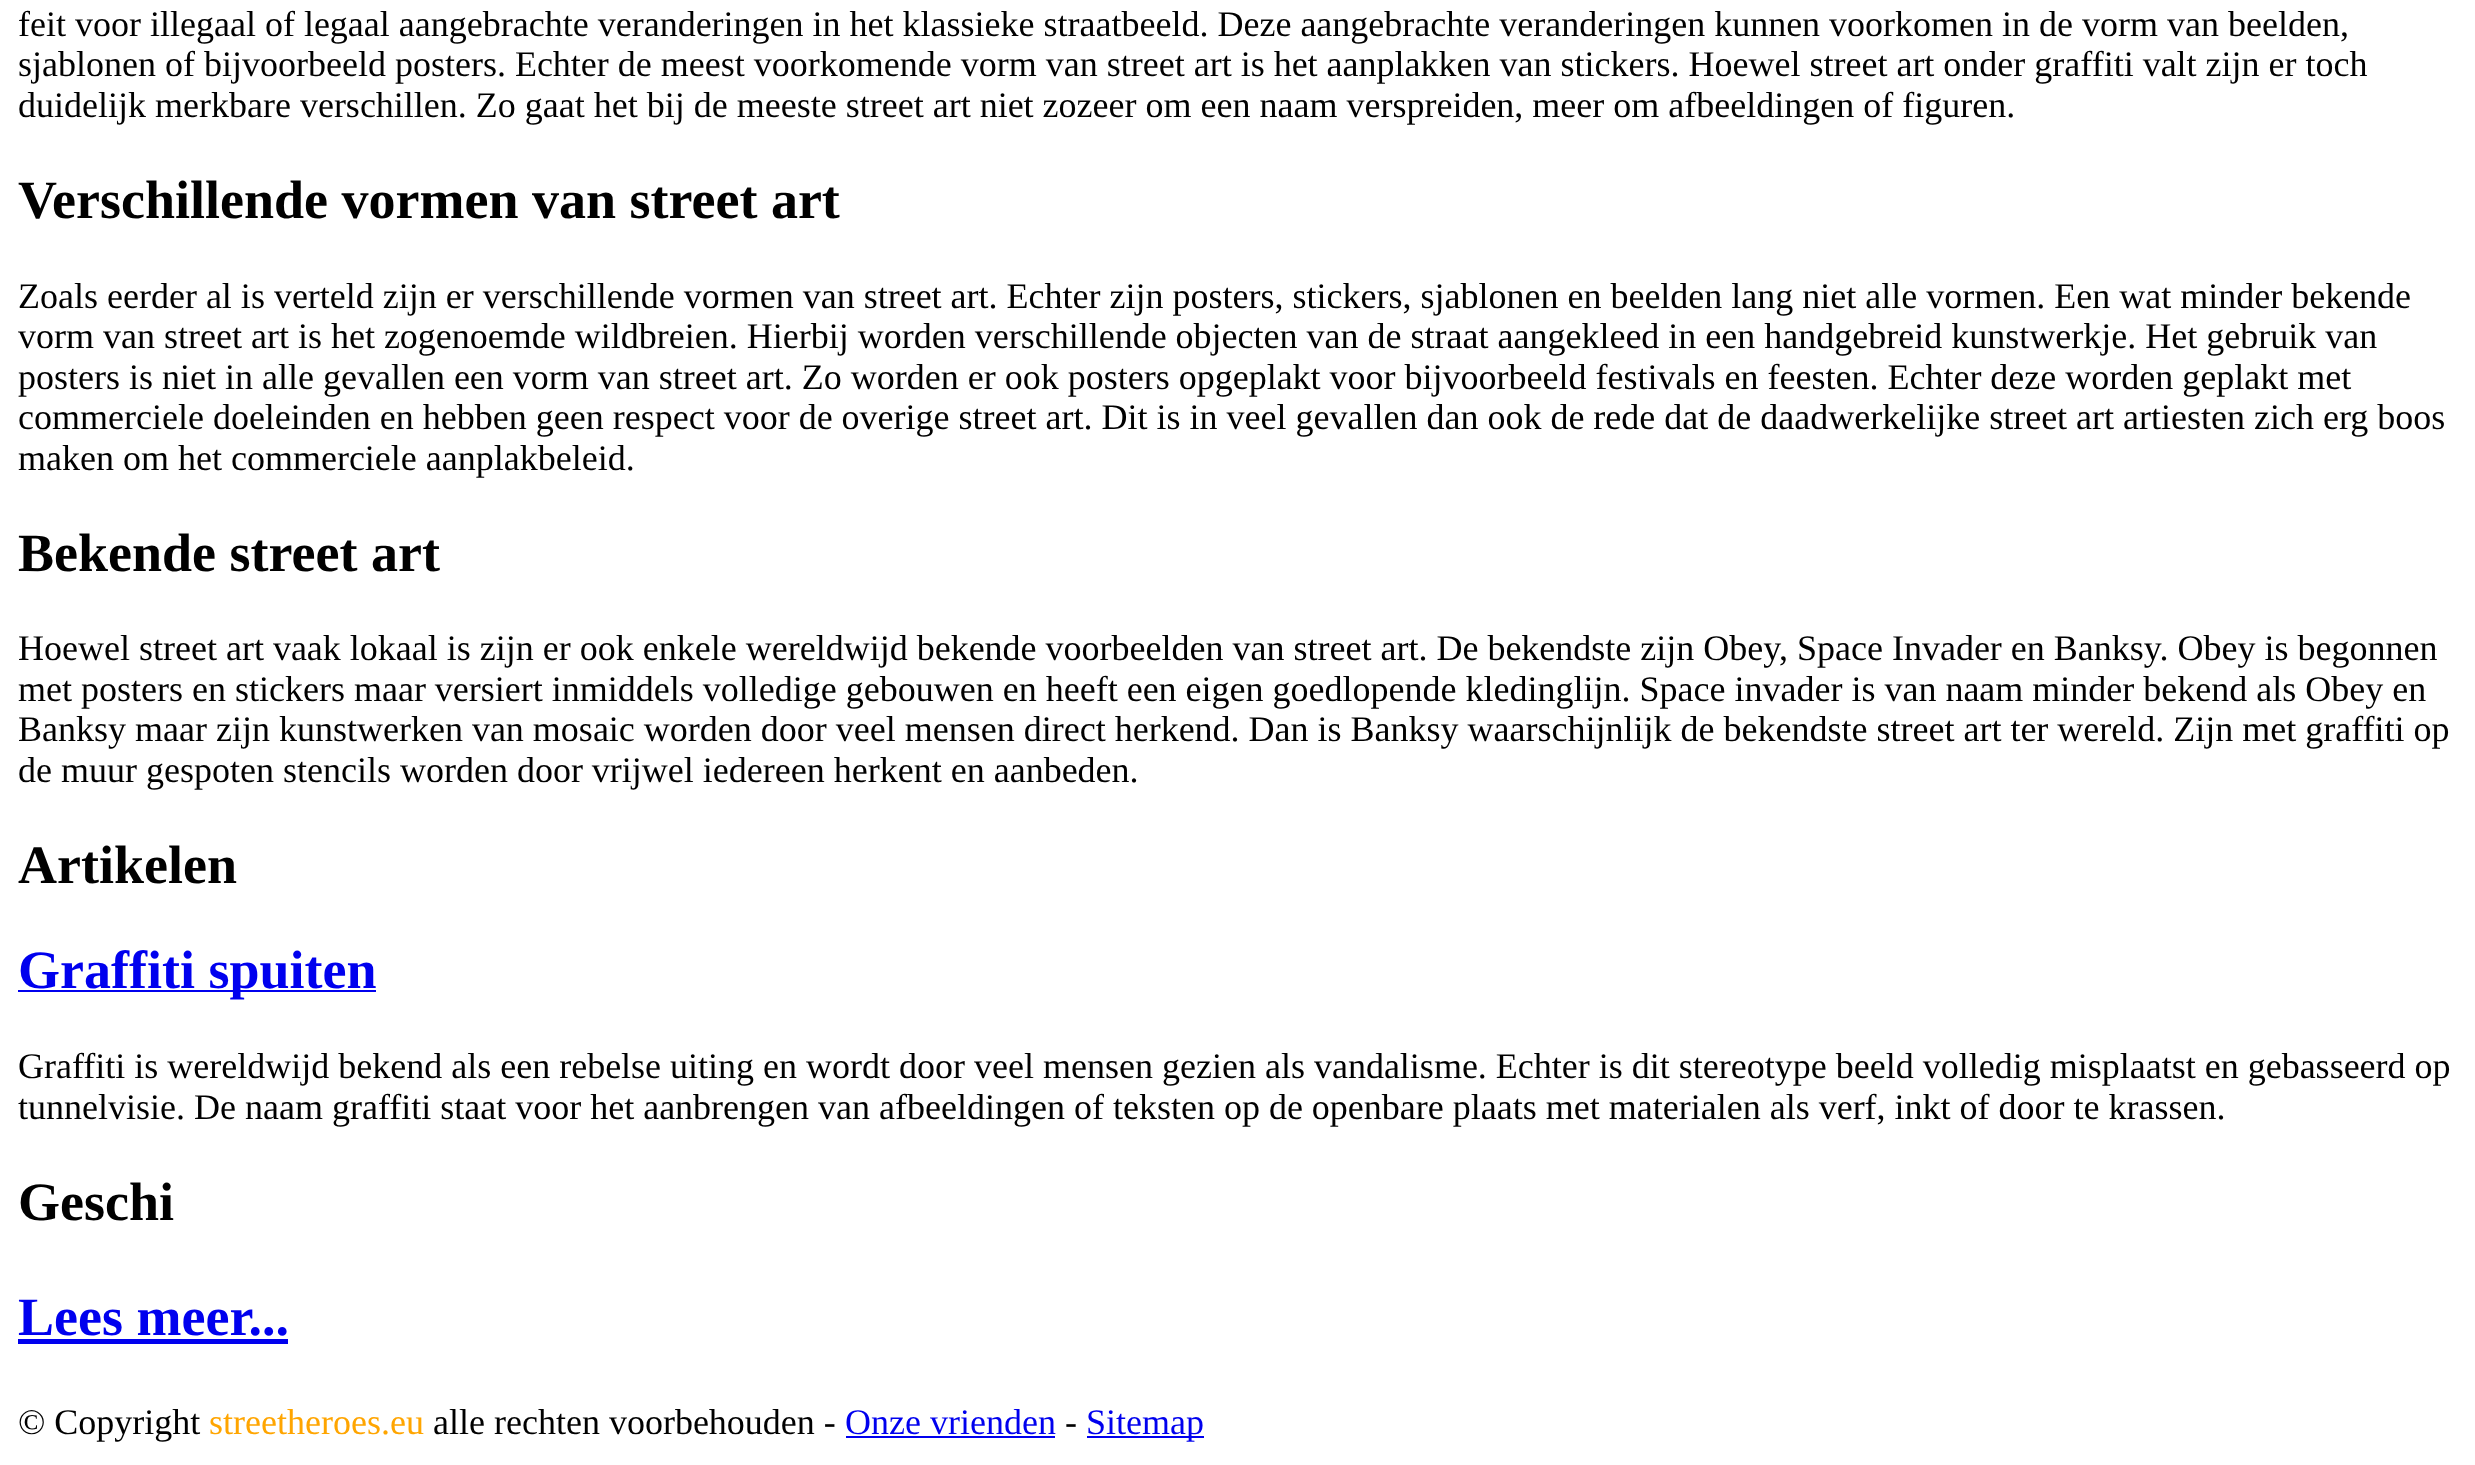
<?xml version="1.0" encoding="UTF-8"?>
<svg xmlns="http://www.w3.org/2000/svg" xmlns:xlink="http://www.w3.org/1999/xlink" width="2475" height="1465">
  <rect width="100%" height="100%" fill="#ffffff" />
  <rect x="18" y="990" width="358" height="2" fill="#0000ee" />
  <rect x="18" y="1339" width="270" height="5" fill="#0000ee" />
  <rect x="846" y="1436" width="209" height="2" fill="#0000ee" />
  <rect x="1087" y="1436" width="117" height="2" fill="#0000ee" />
  <text x="18" y="36" style="font-family: Liberation Serif; font-size: 36px; fill: #000000">feit voor illegaal of legaal aangebrachte veranderingen in het klassieke straatbeeld. Deze aangebrachte veranderingen kunnen voorkomen in de vorm van beelden,</text>
  <text x="18" y="76" style="font-family: Liberation Serif; font-size: 36px; fill: #000000">sjablonen of bijvoorbeeld posters. Echter de meest voorkomende vorm van street art is het aanplakken van stickers. Hoewel street art onder graffiti valt zijn er toch</text>
  <text x="18" y="117" style="font-family: Liberation Serif; font-size: 36px; fill: #000000">duidelijk merkbare verschillen. Zo gaat het bij de meeste street art niet zozeer om een naam verspreiden, meer om afbeeldingen of figuren.</text>
  <text x="18" y="218" style="font-family: Liberation Serif; font-size: 54px; font-weight: bold; fill: #000000">Verschillende vormen van street art</text>
  <text x="18" y="308" style="font-family: Liberation Serif; font-size: 36px; fill: #000000">Zoals eerder al is verteld zijn er verschillende vormen van street art. Echter zijn posters, stickers, sjablonen en beelden lang niet alle vormen. Een wat minder bekende</text>
  <text x="18" y="348" style="font-family: Liberation Serif; font-size: 36px; fill: #000000">vorm van street art is het zogenoemde wildbreien. Hierbij worden verschillende objecten van de straat aangekleed in een handgebreid kunstwerkje. Het gebruik van</text>
  <text x="18" y="389" style="font-family: Liberation Serif; font-size: 36px; fill: #000000">posters is niet in alle gevallen een vorm van street art. Zo worden er ook posters opgeplakt voor bijvoorbeeld festivals en feesten. Echter deze worden geplakt met</text>
  <text x="18" y="429" style="font-family: Liberation Serif; font-size: 36px; fill: #000000">commerciele doeleinden en hebben geen respect voor de overige street art. Dit is in veel gevallen dan ook de rede dat de daadwerkelijke street art artiesten zich erg boos</text>
  <text x="18" y="470" style="font-family: Liberation Serif; font-size: 36px; fill: #000000">maken om het commerciele aanplakbeleid.</text>
  <text x="18" y="571" style="font-family: Liberation Serif; font-size: 54px; font-weight: bold; fill: #000000">Bekende street art</text>
  <text x="18" y="660" style="font-family: Liberation Serif; font-size: 36px; fill: #000000">Hoewel street art vaak lokaal is zijn er ook enkele wereldwijd bekende voorbeelden van street art. De bekendste zijn Obey, Space Invader en Banksy. Obey is begonnen</text>
  <text x="18" y="701" style="font-family: Liberation Serif; font-size: 36px; fill: #000000">met posters en stickers maar versiert inmiddels volledige gebouwen en heeft een eigen goedlopende kledinglijn. Space invader is van naam minder bekend als Obey en</text>
  <text x="18" y="741" style="font-family: Liberation Serif; font-size: 36px; fill: #000000">Banksy maar zijn kunstwerken van mosaic worden door veel mensen direct herkend. Dan is Banksy waarschijnlijk de bekendste street art ter wereld. Zijn met graffiti op</text>
  <text x="18" y="782" style="font-family: Liberation Serif; font-size: 36px; fill: #000000">de muur gespoten stencils worden door vrijwel iedereen herkent en aanbeden.</text>
  <text x="18" y="883" style="font-family: Liberation Serif; font-size: 54px; font-weight: bold; fill: #000000">Artikelen</text>
  <text x="18" y="988" style="font-family: Liberation Serif; font-size: 54px; font-weight: bold; fill: #0000ee">Graffiti spuiten</text>
  <text x="18" y="1078" style="font-family: Liberation Serif; font-size: 36px; fill: #000000">Graffiti is wereldwijd bekend als een rebelse uiting en wordt door veel mensen gezien als vandalisme. Echter is dit stereotype beeld volledig misplaatst en gebasseerd op</text>
  <text x="18" y="1119" style="font-family: Liberation Serif; font-size: 36px; fill: #000000">tunnelvisie. De naam graffiti staat voor het aanbrengen van afbeeldingen of teksten op de openbare plaats met materialen als verf, inkt of door te krassen.</text>
  <text x="18" y="1220" style="font-family: Liberation Serif; font-size: 54px; font-weight: bold; fill: #000000">Geschi</text>
  <text x="18" y="1335" style="font-family: Liberation Serif; font-size: 54px; font-weight: bold; fill: #0000ee">Lees meer...</text>
  <text x="18" y="1434" style="font-family: Liberation Serif; font-size: 36px; fill: #000000">© Copyright</text>
  <text x="209" y="1434" style="font-family: Liberation Serif; font-size: 36px; fill: #ffa500">streetheroes.eu</text>
  <text x="433" y="1434" style="font-family: Liberation Serif; font-size: 36px; fill: #000000">alle rechten voorbehouden -</text>
  <text x="845" y="1434" style="font-family: Liberation Serif; font-size: 36px; fill: #0000ee">Onze vrienden</text>
  <text x="1065" y="1434" style="font-family: Liberation Serif; font-size: 36px; fill: #000000">-</text>
  <text x="1086" y="1434" style="font-family: Liberation Serif; font-size: 36px; fill: #0000ee">Sitemap</text>
</svg>
